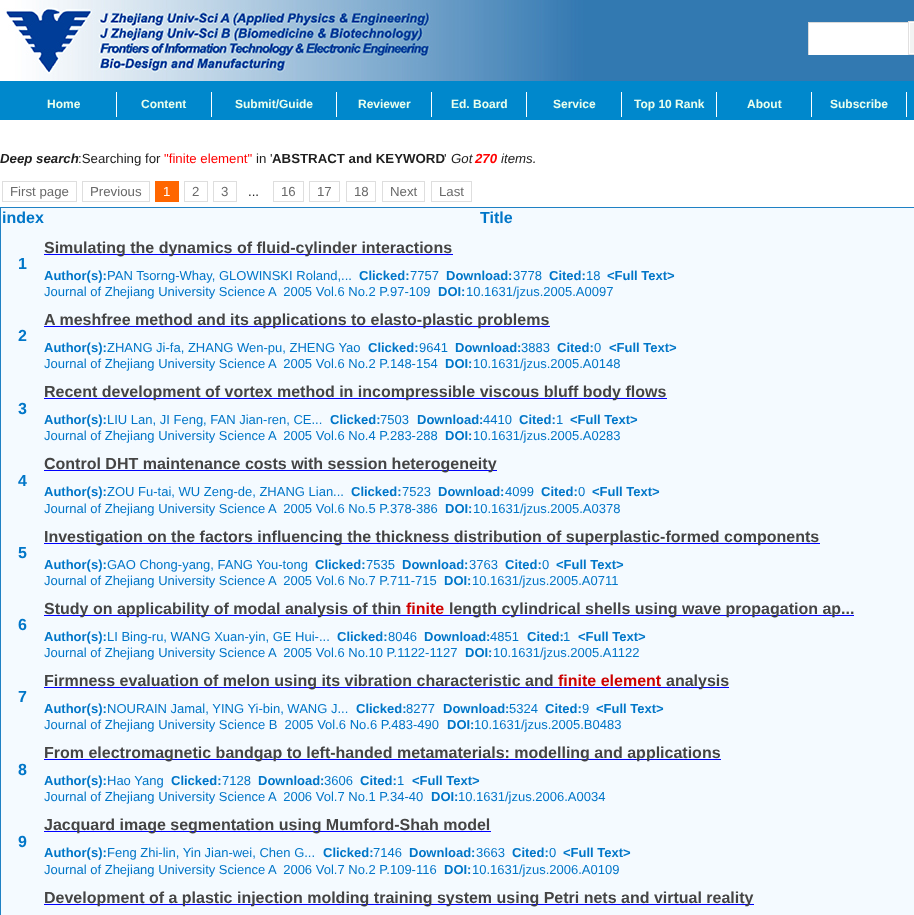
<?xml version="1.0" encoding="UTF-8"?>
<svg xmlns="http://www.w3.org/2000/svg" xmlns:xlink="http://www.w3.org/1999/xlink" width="914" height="915">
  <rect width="100%" height="100%" fill="#ffffff" />
  <image x="0" y="0" width="914" height="81" xlink:href="image1.png" />
  <rect x="809" y="23" width="99" height="32" fill="#ffffff" />
  <rect x="808" y="22" width="101" height="1" fill="#dadada" />
  <rect x="808" y="22" width="1" height="33" fill="#dadada" />
  <rect x="909.5" y="22.5" width="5" height="31" fill="#f2f2f2" stroke="#ffffff" />
  <rect x="908.5" y="21.5" width="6" height="33" fill="none" stroke="#e1e0e0" />
  <rect y="81" width="914" height="39" fill="#0088cc" />
  <rect x="116" y="92" width="1" height="25" fill="#ffffff" />
  <rect x="211" y="92" width="1" height="25" fill="#ffffff" />
  <rect x="336" y="92" width="1" height="25" fill="#ffffff" />
  <rect x="431" y="92" width="1" height="25" fill="#ffffff" />
  <rect x="526" y="92" width="1" height="25" fill="#ffffff" />
  <rect x="621" y="92" width="1" height="25" fill="#ffffff" />
  <rect x="716" y="92" width="1" height="25" fill="#ffffff" />
  <rect x="811" y="92" width="1" height="25" fill="#ffffff" />
  <rect x="906" y="92" width="1" height="25" fill="#ffffff" />
  <rect x="2.5" y="181.5" width="74" height="20" fill="none" stroke="#dedede" />
  <rect x="82.5" y="181.5" width="67" height="20" fill="none" stroke="#dedede" />
  <rect x="155" y="181" width="24" height="21" fill="#ff6600" />
  <rect x="184.5" y="181.5" width="23" height="20" fill="none" stroke="#dedede" />
  <rect x="213.5" y="181.5" width="23" height="20" fill="none" stroke="#dedede" />
  <rect x="273.5" y="181.5" width="30" height="20" fill="none" stroke="#dedede" />
  <rect x="309.5" y="181.5" width="30" height="20" fill="none" stroke="#dedede" />
  <rect x="346.5" y="181.5" width="29" height="20" fill="none" stroke="#dedede" />
  <rect x="382.5" y="181.5" width="42" height="20" fill="none" stroke="#dedede" />
  <rect x="431.5" y="181.5" width="40" height="20" fill="none" stroke="#dedede" />
  <rect y="207" width="914" height="1" fill="#1f81c4" />
  <rect y="207" width="1" height="708" fill="#1f81c4" />
  <rect x="1" y="208" width="913" height="707" fill="#f4faff" />
  <rect x="44" y="254" width="409" height="1" fill="#0000ff" />
  <rect x="44" y="326" width="506" height="1" fill="#0000ff" />
  <rect x="44" y="398" width="623" height="1" fill="#0000ff" />
  <rect x="44" y="470" width="453" height="1" fill="#0000ff" />
  <rect x="44" y="543" width="776" height="1" fill="#0000ff" />
  <rect x="44" y="615" width="810" height="1" fill="#0000ff" />
  <rect x="44" y="687" width="685" height="1" fill="#0000ff" />
  <rect x="44" y="759" width="677" height="1" fill="#0000ff" />
  <rect x="44" y="831" width="447" height="1" fill="#0000ff" />
  <rect x="44" y="904" width="710" height="1" fill="#0000ff" />
  <text x="47" y="108" style="font-family: Liberation Sans; font-size: 12px; font-weight: bold; fill: #eaffed">Home</text>
  <text x="141" y="108" style="font-family: Liberation Sans; font-size: 12px; font-weight: bold; fill: #eaffed">Content</text>
  <text x="235" y="108" style="font-family: Liberation Sans; font-size: 12px; font-weight: bold; fill: #eaffed">Submit/Guide</text>
  <text x="358" y="108" style="font-family: Liberation Sans; font-size: 12px; font-weight: bold; fill: #eaffed">Reviewer</text>
  <text x="451" y="108" style="font-family: Liberation Sans; font-size: 12px; font-weight: bold; fill: #eaffed">Ed. Board</text>
  <text x="553" y="108" style="font-family: Liberation Sans; font-size: 12px; font-weight: bold; fill: #eaffed">Service</text>
  <text x="634" y="108" style="font-family: Liberation Sans; font-size: 12px; font-weight: bold; fill: #eaffed">Top 10 Rank</text>
  <text x="747" y="108" style="font-family: Liberation Sans; font-size: 12px; font-weight: bold; fill: #eaffed">About</text>
  <text x="830" y="108" style="font-family: Liberation Sans; font-size: 12px; font-weight: bold; fill: #eaffed">Subscribe</text>
  <text x="0" y="163" style="font-family: Liberation Sans; font-size: 13.25px; font-weight: bold; font-style: italic; fill: #202020">Deep search</text>
  <text x="78" y="163" style="font-family: Liberation Sans; font-size: 13.25px; fill: #202020">:Searching for</text>
  <text x="164" y="163" style="font-family: Liberation Sans; font-size: 13.25px; fill: #ff0000">"finite element"</text>
  <text x="256" y="163" style="font-family: Liberation Sans; font-size: 13.25px; fill: #202020">in '</text>
  <text x="272" y="163" style="font-family: Liberation Sans; font-size: 13.25px; font-weight: bold; fill: #202020">ABSTRACT and KEYWORD</text>
  <text x="444" y="163" style="font-family: Liberation Sans; font-size: 13.25px; fill: #202020">'</text>
  <text x="451" y="163" style="font-family: Liberation Sans; font-size: 13.25px; font-style: italic; fill: #202020">Got</text>
  <text x="475" y="163" style="font-family: Liberation Sans; font-size: 13.25px; font-weight: bold; font-style: italic; fill: #ff0000">270</text>
  <text x="501" y="163" style="font-family: Liberation Sans; font-size: 13.25px; font-style: italic; fill: #202020">items.</text>
  <text x="10" y="196" style="font-family: Liberation Sans; font-size: 13.25px; fill: #696969">First page</text>
  <text x="90" y="196" style="font-family: Liberation Sans; font-size: 13.25px; fill: #696969">Previous</text>
  <text x="163" y="196" style="font-family: Liberation Sans; font-size: 13.25px; fill: #ffffff">1</text>
  <text x="192" y="196" style="font-family: Liberation Sans; font-size: 13.25px; fill: #696969">2</text>
  <text x="221" y="196" style="font-family: Liberation Sans; font-size: 13.25px; fill: #696969">3</text>
  <text x="248" y="196" style="font-family: Liberation Sans; font-size: 13.25px; fill: #202020">...</text>
  <text x="281" y="196" style="font-family: Liberation Sans; font-size: 13.25px; fill: #696969">16</text>
  <text x="317" y="196" style="font-family: Liberation Sans; font-size: 13.25px; fill: #696969">17</text>
  <text x="354" y="196" style="font-family: Liberation Sans; font-size: 13.25px; fill: #696969">18</text>
  <text x="390" y="196" style="font-family: Liberation Sans; font-size: 13.25px; fill: #696969">Next</text>
  <text x="439" y="196" style="font-family: Liberation Sans; font-size: 13.25px; fill: #696969">Last</text>
  <text x="2" y="223" style="font-family: Liberation Sans; font-size: 16px; font-weight: bold; fill: #0076c8">index</text>
  <text x="480" y="223" style="font-family: Liberation Sans; font-size: 16px; font-weight: bold; fill: #0076c8">Title</text>
  <text x="18" y="269" style="font-family: Liberation Sans; font-size: 16px; font-weight: bold; fill: #0076c8">1</text>
  <text x="44" y="253" style="font-family: Liberation Sans; font-size: 16px; font-weight: bold; fill: #444444">Simulating the dynamics of fluid-cylinder interactions</text>
  <text x="44" y="280" style="font-family: Liberation Sans; font-size: 13px; font-weight: bold; fill: #0076c8">Author(s):</text>
  <text x="107" y="280" style="font-family: Liberation Sans; font-size: 13px; fill: #0076c8">PAN Tsorng-Whay, GLOWINSKI Roland,...</text>
  <text x="359" y="280" style="font-family: Liberation Sans; font-size: 13px; font-weight: bold; fill: #0076c8">Clicked:</text>
  <text x="410" y="280" style="font-family: Liberation Sans; font-size: 13px; fill: #0076c8">7757</text>
  <text x="446" y="280" style="font-family: Liberation Sans; font-size: 13px; font-weight: bold; fill: #0076c8">Download:</text>
  <text x="513" y="280" style="font-family: Liberation Sans; font-size: 13px; fill: #0076c8">3778</text>
  <text x="549" y="280" style="font-family: Liberation Sans; font-size: 13px; font-weight: bold; fill: #0076c8">Cited:</text>
  <text x="586" y="280" style="font-family: Liberation Sans; font-size: 13px; fill: #0076c8">18</text>
  <text x="607" y="280" style="font-family: Liberation Sans; font-size: 13px; font-weight: bold; fill: #0076c8">&lt;Full Text&gt;</text>
  <text x="44" y="296" style="font-family: Liberation Sans; font-size: 13px; fill: #0076c8" xml:space="preserve">Journal of Zhejiang University Science A  2005 Vol.6 No.2 P.97-109</text>
  <text x="438" y="296" style="font-family: Liberation Sans; font-size: 13px; font-weight: bold; fill: #0076c8">DOI:</text>
  <text x="466" y="296" style="font-family: Liberation Sans; font-size: 13px; fill: #0076c8">10.1631/jzus.2005.A0097</text>
  <text x="18" y="341" style="font-family: Liberation Sans; font-size: 16px; font-weight: bold; fill: #0076c8">2</text>
  <text x="44" y="325" style="font-family: Liberation Sans; font-size: 16px; font-weight: bold; fill: #444444">A meshfree method and its applications to elasto-plastic problems</text>
  <text x="44" y="352" style="font-family: Liberation Sans; font-size: 13px; font-weight: bold; fill: #0076c8">Author(s):</text>
  <text x="107" y="352" style="font-family: Liberation Sans; font-size: 13px; fill: #0076c8">ZHANG Ji-fa, ZHANG Wen-pu, ZHENG Yao</text>
  <text x="368" y="352" style="font-family: Liberation Sans; font-size: 13px; font-weight: bold; fill: #0076c8">Clicked:</text>
  <text x="419" y="352" style="font-family: Liberation Sans; font-size: 13px; fill: #0076c8">9641</text>
  <text x="455" y="352" style="font-family: Liberation Sans; font-size: 13px; font-weight: bold; fill: #0076c8">Download:</text>
  <text x="521" y="352" style="font-family: Liberation Sans; font-size: 13px; fill: #0076c8">3883</text>
  <text x="557" y="352" style="font-family: Liberation Sans; font-size: 13px; font-weight: bold; fill: #0076c8">Cited:</text>
  <text x="594" y="352" style="font-family: Liberation Sans; font-size: 13px; fill: #0076c8">0</text>
  <text x="609" y="352" style="font-family: Liberation Sans; font-size: 13px; font-weight: bold; fill: #0076c8">&lt;Full Text&gt;</text>
  <text x="44" y="368" style="font-family: Liberation Sans; font-size: 13px; fill: #0076c8" xml:space="preserve">Journal of Zhejiang University Science A  2005 Vol.6 No.2 P.148-154</text>
  <text x="445" y="368" style="font-family: Liberation Sans; font-size: 13px; font-weight: bold; fill: #0076c8">DOI:</text>
  <text x="473" y="368" style="font-family: Liberation Sans; font-size: 13px; fill: #0076c8">10.1631/jzus.2005.A0148</text>
  <text x="18" y="414" style="font-family: Liberation Sans; font-size: 16px; font-weight: bold; fill: #0076c8">3</text>
  <text x="44" y="397" style="font-family: Liberation Sans; font-size: 16px; font-weight: bold; fill: #444444">Recent development of vortex method in incompressible viscous bluff body flows</text>
  <text x="44" y="424" style="font-family: Liberation Sans; font-size: 13px; font-weight: bold; fill: #0076c8">Author(s):</text>
  <text x="107" y="424" style="font-family: Liberation Sans; font-size: 13px; fill: #0076c8">LIU Lan, JI Feng, FAN Jian-ren, CE...</text>
  <text x="330" y="424" style="font-family: Liberation Sans; font-size: 13px; font-weight: bold; fill: #0076c8">Clicked:</text>
  <text x="380" y="424" style="font-family: Liberation Sans; font-size: 13px; fill: #0076c8">7503</text>
  <text x="417" y="424" style="font-family: Liberation Sans; font-size: 13px; font-weight: bold; fill: #0076c8">Download:</text>
  <text x="483" y="424" style="font-family: Liberation Sans; font-size: 13px; fill: #0076c8">4410</text>
  <text x="519" y="424" style="font-family: Liberation Sans; font-size: 13px; font-weight: bold; fill: #0076c8">Cited:</text>
  <text x="556" y="424" style="font-family: Liberation Sans; font-size: 13px; fill: #0076c8">1</text>
  <text x="570" y="424" style="font-family: Liberation Sans; font-size: 13px; font-weight: bold; fill: #0076c8">&lt;Full Text&gt;</text>
  <text x="44" y="440" style="font-family: Liberation Sans; font-size: 13px; fill: #0076c8" xml:space="preserve">Journal of Zhejiang University Science A  2005 Vol.6 No.4 P.283-288</text>
  <text x="445" y="440" style="font-family: Liberation Sans; font-size: 13px; font-weight: bold; fill: #0076c8">DOI:</text>
  <text x="473" y="440" style="font-family: Liberation Sans; font-size: 13px; fill: #0076c8">10.1631/jzus.2005.A0283</text>
  <text x="18" y="486" style="font-family: Liberation Sans; font-size: 16px; font-weight: bold; fill: #0076c8">4</text>
  <text x="44" y="469" style="font-family: Liberation Sans; font-size: 16px; font-weight: bold; fill: #444444">Control DHT maintenance costs with session heterogeneity</text>
  <text x="44" y="496" style="font-family: Liberation Sans; font-size: 13px; font-weight: bold; fill: #0076c8">Author(s):</text>
  <text x="107" y="496" style="font-family: Liberation Sans; font-size: 13px; fill: #0076c8">ZOU Fu-tai, WU Zeng-de, ZHANG Lian...</text>
  <text x="351" y="496" style="font-family: Liberation Sans; font-size: 13px; font-weight: bold; fill: #0076c8">Clicked:</text>
  <text x="402" y="496" style="font-family: Liberation Sans; font-size: 13px; fill: #0076c8">7523</text>
  <text x="438" y="496" style="font-family: Liberation Sans; font-size: 13px; font-weight: bold; fill: #0076c8">Download:</text>
  <text x="505" y="496" style="font-family: Liberation Sans; font-size: 13px; fill: #0076c8">4099</text>
  <text x="541" y="496" style="font-family: Liberation Sans; font-size: 13px; font-weight: bold; fill: #0076c8">Cited:</text>
  <text x="578" y="496" style="font-family: Liberation Sans; font-size: 13px; fill: #0076c8">0</text>
  <text x="592" y="496" style="font-family: Liberation Sans; font-size: 13px; font-weight: bold; fill: #0076c8">&lt;Full Text&gt;</text>
  <text x="44" y="513" style="font-family: Liberation Sans; font-size: 13px; fill: #0076c8" xml:space="preserve">Journal of Zhejiang University Science A  2005 Vol.6 No.5 P.378-386</text>
  <text x="445" y="513" style="font-family: Liberation Sans; font-size: 13px; font-weight: bold; fill: #0076c8">DOI:</text>
  <text x="473" y="513" style="font-family: Liberation Sans; font-size: 13px; fill: #0076c8">10.1631/jzus.2005.A0378</text>
  <text x="18" y="558" style="font-family: Liberation Sans; font-size: 16px; font-weight: bold; fill: #0076c8">5</text>
  <text x="44" y="542" style="font-family: Liberation Sans; font-size: 16px; font-weight: bold; fill: #444444">Investigation on the factors influencing the thickness distribution of superplastic-formed components</text>
  <text x="44" y="569" style="font-family: Liberation Sans; font-size: 13px; font-weight: bold; fill: #0076c8">Author(s):</text>
  <text x="107" y="569" style="font-family: Liberation Sans; font-size: 13px; fill: #0076c8">GAO Chong-yang, FANG You-tong</text>
  <text x="315" y="569" style="font-family: Liberation Sans; font-size: 13px; font-weight: bold; fill: #0076c8">Clicked:</text>
  <text x="366" y="569" style="font-family: Liberation Sans; font-size: 13px; fill: #0076c8">7535</text>
  <text x="402" y="569" style="font-family: Liberation Sans; font-size: 13px; font-weight: bold; fill: #0076c8">Download:</text>
  <text x="469" y="569" style="font-family: Liberation Sans; font-size: 13px; fill: #0076c8">3763</text>
  <text x="505" y="569" style="font-family: Liberation Sans; font-size: 13px; font-weight: bold; fill: #0076c8">Cited:</text>
  <text x="542" y="569" style="font-family: Liberation Sans; font-size: 13px; fill: #0076c8">0</text>
  <text x="556" y="569" style="font-family: Liberation Sans; font-size: 13px; font-weight: bold; fill: #0076c8">&lt;Full Text&gt;</text>
  <text x="44" y="585" style="font-family: Liberation Sans; font-size: 13px; fill: #0076c8" xml:space="preserve">Journal of Zhejiang University Science A  2005 Vol.6 No.7 P.711-715</text>
  <text x="444" y="585" style="font-family: Liberation Sans; font-size: 13px; font-weight: bold; fill: #0076c8">DOI:</text>
  <text x="472" y="585" style="font-family: Liberation Sans; font-size: 13px; fill: #0076c8">10.1631/jzus.2005.A0711</text>
  <text x="18" y="630" style="font-family: Liberation Sans; font-size: 16px; font-weight: bold; fill: #0076c8">6</text>
  <text x="44" y="614" style="font-family: Liberation Sans; font-size: 16px; font-weight: bold; fill: #444444">Study on applicability of modal analysis of thin</text>
  <text x="406" y="614" style="font-family: Liberation Sans; font-size: 16px; font-weight: bold; fill: #cc0000">finite</text>
  <text x="449" y="614" style="font-family: Liberation Sans; font-size: 16px; font-weight: bold; fill: #444444">length cylindrical shells using wave propagation ap...</text>
  <text x="44" y="641" style="font-family: Liberation Sans; font-size: 13px; font-weight: bold; fill: #0076c8">Author(s):</text>
  <text x="107" y="641" style="font-family: Liberation Sans; font-size: 13px; fill: #0076c8">LI Bing-ru, WANG Xuan-yin, GE Hui-...</text>
  <text x="337" y="641" style="font-family: Liberation Sans; font-size: 13px; font-weight: bold; fill: #0076c8">Clicked:</text>
  <text x="388" y="641" style="font-family: Liberation Sans; font-size: 13px; fill: #0076c8">8046</text>
  <text x="424" y="641" style="font-family: Liberation Sans; font-size: 13px; font-weight: bold; fill: #0076c8">Download:</text>
  <text x="490" y="641" style="font-family: Liberation Sans; font-size: 13px; fill: #0076c8">4851</text>
  <text x="527" y="641" style="font-family: Liberation Sans; font-size: 13px; font-weight: bold; fill: #0076c8">Cited:</text>
  <text x="563" y="641" style="font-family: Liberation Sans; font-size: 13px; fill: #0076c8">1</text>
  <text x="578" y="641" style="font-family: Liberation Sans; font-size: 13px; font-weight: bold; fill: #0076c8">&lt;Full Text&gt;</text>
  <text x="44" y="657" style="font-family: Liberation Sans; font-size: 13px; fill: #0076c8" xml:space="preserve">Journal of Zhejiang University Science A  2005 Vol.6 No.10 P.1122-1127</text>
  <text x="465" y="657" style="font-family: Liberation Sans; font-size: 13px; font-weight: bold; fill: #0076c8">DOI:</text>
  <text x="493" y="657" style="font-family: Liberation Sans; font-size: 13px; fill: #0076c8">10.1631/jzus.2005.A1122</text>
  <text x="18" y="702" style="font-family: Liberation Sans; font-size: 16px; font-weight: bold; fill: #0076c8">7</text>
  <text x="44" y="686" style="font-family: Liberation Sans; font-size: 16px; font-weight: bold; fill: #444444">Firmness evaluation of melon using its vibration characteristic and</text>
  <text x="558" y="686" style="font-family: Liberation Sans; font-size: 16px; font-weight: bold; fill: #cc0000">finite element</text>
  <text x="666" y="686" style="font-family: Liberation Sans; font-size: 16px; font-weight: bold; fill: #444444">analysis</text>
  <text x="44" y="713" style="font-family: Liberation Sans; font-size: 13px; font-weight: bold; fill: #0076c8">Author(s):</text>
  <text x="107" y="713" style="font-family: Liberation Sans; font-size: 13px; fill: #0076c8">NOURAIN Jamal, YING Yi-bin, WANG J...</text>
  <text x="356" y="713" style="font-family: Liberation Sans; font-size: 13px; font-weight: bold; fill: #0076c8">Clicked:</text>
  <text x="406" y="713" style="font-family: Liberation Sans; font-size: 13px; fill: #0076c8">8277</text>
  <text x="443" y="713" style="font-family: Liberation Sans; font-size: 13px; font-weight: bold; fill: #0076c8">Download:</text>
  <text x="509" y="713" style="font-family: Liberation Sans; font-size: 13px; fill: #0076c8">5324</text>
  <text x="545" y="713" style="font-family: Liberation Sans; font-size: 13px; font-weight: bold; fill: #0076c8">Cited:</text>
  <text x="582" y="713" style="font-family: Liberation Sans; font-size: 13px; fill: #0076c8">9</text>
  <text x="596" y="713" style="font-family: Liberation Sans; font-size: 13px; font-weight: bold; fill: #0076c8">&lt;Full Text&gt;</text>
  <text x="44" y="729" style="font-family: Liberation Sans; font-size: 13px; fill: #0076c8" xml:space="preserve">Journal of Zhejiang University Science B  2005 Vol.6 No.6 P.483-490</text>
  <text x="447" y="729" style="font-family: Liberation Sans; font-size: 13px; font-weight: bold; fill: #0076c8">DOI:</text>
  <text x="474" y="729" style="font-family: Liberation Sans; font-size: 13px; fill: #0076c8">10.1631/jzus.2005.B0483</text>
  <text x="18" y="775" style="font-family: Liberation Sans; font-size: 16px; font-weight: bold; fill: #0076c8">8</text>
  <text x="44" y="758" style="font-family: Liberation Sans; font-size: 16px; font-weight: bold; fill: #444444">From electromagnetic bandgap to left-handed metamaterials: modelling and applications</text>
  <text x="44" y="785" style="font-family: Liberation Sans; font-size: 13px; font-weight: bold; fill: #0076c8">Author(s):</text>
  <text x="107" y="785" style="font-family: Liberation Sans; font-size: 13px; fill: #0076c8">Hao Yang</text>
  <text x="171" y="785" style="font-family: Liberation Sans; font-size: 13px; font-weight: bold; fill: #0076c8">Clicked:</text>
  <text x="222" y="785" style="font-family: Liberation Sans; font-size: 13px; fill: #0076c8">7128</text>
  <text x="258" y="785" style="font-family: Liberation Sans; font-size: 13px; font-weight: bold; fill: #0076c8">Download:</text>
  <text x="324" y="785" style="font-family: Liberation Sans; font-size: 13px; fill: #0076c8">3606</text>
  <text x="360" y="785" style="font-family: Liberation Sans; font-size: 13px; font-weight: bold; fill: #0076c8">Cited:</text>
  <text x="397" y="785" style="font-family: Liberation Sans; font-size: 13px; fill: #0076c8">1</text>
  <text x="412" y="785" style="font-family: Liberation Sans; font-size: 13px; font-weight: bold; fill: #0076c8">&lt;Full Text&gt;</text>
  <text x="44" y="801" style="font-family: Liberation Sans; font-size: 13px; fill: #0076c8" xml:space="preserve">Journal of Zhejiang University Science A  2006 Vol.7 No.1 P.34-40</text>
  <text x="431" y="801" style="font-family: Liberation Sans; font-size: 13px; font-weight: bold; fill: #0076c8">DOI:</text>
  <text x="458" y="801" style="font-family: Liberation Sans; font-size: 13px; fill: #0076c8">10.1631/jzus.2006.A0034</text>
  <text x="18" y="847" style="font-family: Liberation Sans; font-size: 16px; font-weight: bold; fill: #0076c8">9</text>
  <text x="44" y="830" style="font-family: Liberation Sans; font-size: 16px; font-weight: bold; fill: #444444">Jacquard image segmentation using Mumford-Shah model</text>
  <text x="44" y="857" style="font-family: Liberation Sans; font-size: 13px; font-weight: bold; fill: #0076c8">Author(s):</text>
  <text x="107" y="857" style="font-family: Liberation Sans; font-size: 13px; fill: #0076c8">Feng Zhi-lin, Yin Jian-wei, Chen G...</text>
  <text x="323" y="857" style="font-family: Liberation Sans; font-size: 13px; font-weight: bold; fill: #0076c8">Clicked:</text>
  <text x="373" y="857" style="font-family: Liberation Sans; font-size: 13px; fill: #0076c8">7146</text>
  <text x="409" y="857" style="font-family: Liberation Sans; font-size: 13px; font-weight: bold; fill: #0076c8">Download:</text>
  <text x="476" y="857" style="font-family: Liberation Sans; font-size: 13px; fill: #0076c8">3663</text>
  <text x="512" y="857" style="font-family: Liberation Sans; font-size: 13px; font-weight: bold; fill: #0076c8">Cited:</text>
  <text x="549" y="857" style="font-family: Liberation Sans; font-size: 13px; fill: #0076c8">0</text>
  <text x="563" y="857" style="font-family: Liberation Sans; font-size: 13px; font-weight: bold; fill: #0076c8">&lt;Full Text&gt;</text>
  <text x="44" y="874" style="font-family: Liberation Sans; font-size: 13px; fill: #0076c8" xml:space="preserve">Journal of Zhejiang University Science A  2006 Vol.7 No.2 P.109-116</text>
  <text x="444" y="874" style="font-family: Liberation Sans; font-size: 13px; font-weight: bold; fill: #0076c8">DOI:</text>
  <text x="472" y="874" style="font-family: Liberation Sans; font-size: 13px; fill: #0076c8">10.1631/jzus.2006.A0109</text>
  <text x="44" y="903" style="font-family: Liberation Sans; font-size: 16px; font-weight: bold; fill: #444444">Development of a plastic injection molding training system using Petri nets and virtual reality</text>
</svg>
